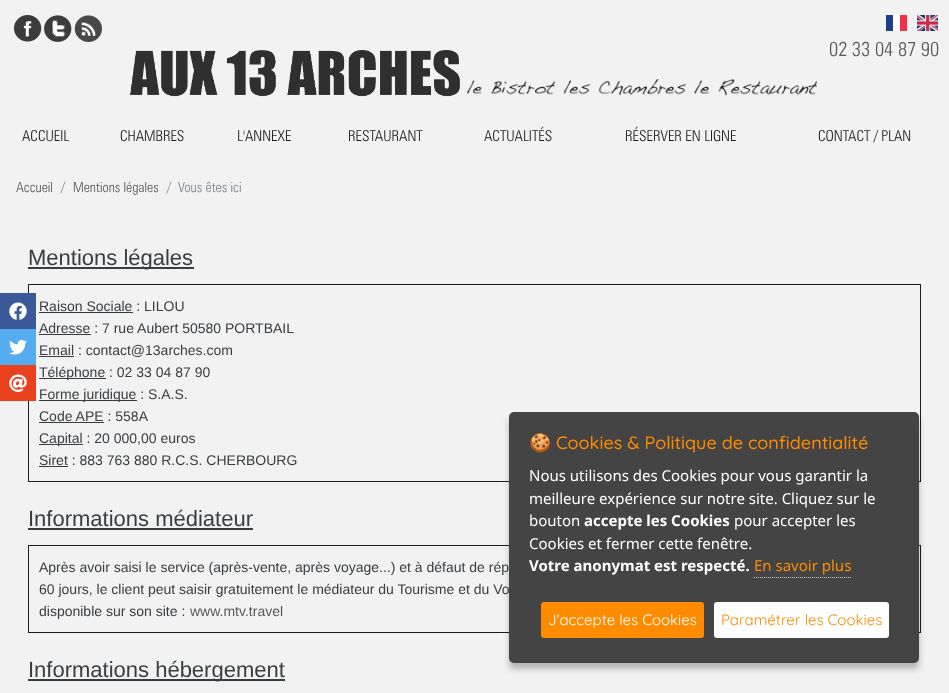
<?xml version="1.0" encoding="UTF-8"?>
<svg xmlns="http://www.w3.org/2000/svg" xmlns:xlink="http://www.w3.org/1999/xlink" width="949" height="693">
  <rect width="100%" height="100%" fill="#f2f2f2" />
  <image x="14" y="15" width="28" height="27" xlink:href="image1.png" />
  <image x="44" y="15" width="28" height="27" xlink:href="image2.png" />
  <image x="74" y="15" width="28" height="27" xlink:href="image3.png" />
  <rect x="893" y="15" width="7" height="16" fill="#fdfdfd" />
  <rect x="886" y="15" width="7" height="16" fill="#1c3e8c" />
  <rect x="900" y="15" width="7" height="16" fill="#f33146" />
  <image x="917" y="15" width="21" height="16" xlink:href="image4.png" />
  <image x="129" y="50" width="331" height="47" xlink:href="image5.png" />
  <image x="467" y="79" width="350" height="17" xlink:href="image6.png" />
  <rect x="28" y="267" width="166" height="2" fill="#393d40" />
  <rect x="28.5" y="284.5" width="892" height="197" fill="none" stroke="#1c1c1c" />
  <rect x="39" y="312" width="94" height="1" fill="#393d40" />
  <rect x="39" y="334" width="52" height="1" fill="#393d40" />
  <rect x="39" y="356" width="35" height="1" fill="#393d40" />
  <rect x="39" y="378" width="67" height="1" fill="#393d40" />
  <rect x="39" y="400" width="98" height="1" fill="#393d40" />
  <rect x="39" y="422" width="65" height="1" fill="#393d40" />
  <rect x="39" y="444" width="44" height="1" fill="#393d40" />
  <rect x="39" y="466" width="29" height="1" fill="#393d40" />
  <rect x="28" y="528" width="225" height="2" fill="#393d40" />
  <rect x="28.5" y="545.5" width="892" height="87" fill="none" stroke="#1c1c1c" />
  <rect x="28" y="679" width="257" height="2" fill="#393d40" />
  <rect y="293" width="36" height="36" fill="#3b5998" />
  <image x="9" y="302" width="18" height="18" xlink:href="image7.png" />
  <rect y="329" width="36" height="36" fill="#55acee" />
  <image x="9" y="339" width="18" height="16" xlink:href="image8.png" />
  <rect y="365" width="36" height="36" fill="#e9401e" />
  <image x="9" y="374" width="18" height="18" xlink:href="image9.png" />
  <rect x="509" y="418" width="410" height="251" rx="5" fill="#000000" fill-opacity="0.25" filter="blur(3px)" />
  <text x="829" y="56" style="font-family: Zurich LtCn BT; font-size: 20px; font-weight: 300; fill: #585858">02 33 04 87 90</text>
  <text x="22" y="141" style="font-family: Zurich LtCn BT; font-size: 15px; font-weight: 300; fill: #1c1c1c">ACCUEIL</text>
  <text x="120" y="141" style="font-family: Zurich LtCn BT; font-size: 15px; font-weight: 300; fill: #1c1c1c">CHAMBRES</text>
  <text x="237" y="141" style="font-family: Zurich LtCn BT; font-size: 15px; font-weight: 300; fill: #1c1c1c">L'ANNEXE</text>
  <text x="348" y="141" style="font-family: Zurich LtCn BT; font-size: 15px; font-weight: 300; fill: #1c1c1c">RESTAURANT</text>
  <text x="484" y="141" style="font-family: Zurich LtCn BT; font-size: 15px; font-weight: 300; fill: #1c1c1c">ACTUALITÉS</text>
  <text x="625" y="141" style="font-family: Zurich LtCn BT; font-size: 15px; font-weight: 300; fill: #1c1c1c">RÉSERVER EN LIGNE</text>
  <text x="818" y="141" style="font-family: Zurich LtCn BT; font-size: 15px; font-weight: 300; fill: #1c1c1c">CONTACT / PLAN</text>
  <text x="16" y="192" style="font-family: Zurich LtCn BT; font-size: 14px; font-weight: 300; fill: #585858">Accueil</text>
  <text x="61" y="192" style="font-family: Zurich LtCn BT; font-size: 14px; font-weight: 300; fill: #7b838b">/</text>
  <text x="73" y="192" style="font-family: Zurich LtCn BT; font-size: 14px; font-weight: 300; fill: #585858">Mentions légales</text>
  <text x="167" y="192" style="font-family: Zurich LtCn BT; font-size: 14px; font-weight: 300; fill: #7b838b">/</text>
  <text x="178" y="192" style="font-family: Zurich LtCn BT; font-size: 14px; font-weight: 300; fill: #7b838b">Vous êtes ici</text>
  <text x="28" y="265" style="font-family: Liberation Sans; font-size: 22px; fill: #393d40">Mentions légales</text>
  <text x="39" y="311" style="font-family: Liberation Sans; font-size: 14px; fill: #393d40">Raison Sociale : LILOU</text>
  <text x="39" y="333" style="font-family: Liberation Sans; font-size: 14px; fill: #393d40">Adresse : 7 rue Aubert 50580 PORTBAIL</text>
  <text x="39" y="355" style="font-family: Liberation Sans; font-size: 14px; fill: #393d40">Email : contact@13arches.com</text>
  <text x="39" y="377" style="font-family: Liberation Sans; font-size: 14px; fill: #393d40">Téléphone : 02 33 04 87 90</text>
  <text x="39" y="399" style="font-family: Liberation Sans; font-size: 14px; fill: #393d40">Forme juridique : S.A.S.</text>
  <text x="39" y="421" style="font-family: Liberation Sans; font-size: 14px; fill: #393d40">Code APE : 558A</text>
  <text x="39" y="443" style="font-family: Liberation Sans; font-size: 14px; fill: #393d40">Capital : 20 000,00 euros</text>
  <text x="39" y="465" style="font-family: Liberation Sans; font-size: 14px; fill: #393d40">Siret : 883 763 880 R.C.S. CHERBOURG</text>
  <text x="28" y="526" style="font-family: Liberation Sans; font-size: 22px; fill: #393d40">Informations médiateur</text>
  <text x="39" y="572" style="font-family: Liberation Sans; font-size: 14px; fill: #393d40">Après avoir saisi le service (après-vente, après voyage...) et à défaut de rép</text>
  <text x="39" y="594" style="font-family: Liberation Sans; font-size: 14px; fill: #393d40">60 jours, le client peut saisir gratuitement le médiateur du Tourisme et du Vo</text>
  <text x="39" y="616" style="font-family: Liberation Sans; font-size: 14px; fill: #393d40">disponible sur son site :</text>
  <text x="190" y="616" style="font-family: Liberation Sans; font-size: 14px; fill: #585858">www.mtv.travel</text>
  <text x="28" y="677" style="font-family: Liberation Sans; font-size: 22px; fill: #393d40">Informations hébergement</text>
  <rect x="509" y="412" width="410" height="251" rx="5" fill="#444444" />
  <text x="529" y="449" style="font-family: Noto Color Emoji; font-size: 18px; fill: #ff8c00">🍪</text>
  <text x="556" y="449" style="font-family: Quicksand; font-size: 18px; font-weight: 500; fill: #ff8c00">Cookies &amp; Politique de confidentialité</text>
  <text x="529" y="481" style="font-family: Noto Sans; font-size: 15px; fill: #ffffff">Nous utilisons des Cookies pour vous garantir la</text>
  <text x="529" y="504" style="font-family: Noto Sans; font-size: 15px; fill: #ffffff">meilleure expérience sur notre site. Cliquez sur le</text>
  <text x="529" y="526" style="font-family: Noto Sans; font-size: 15px; fill: #ffffff">bouton</text>
  <text x="584" y="526" style="font-family: Noto Sans; font-size: 15px; font-weight: bold; fill: #ffffff">accepte les Cookies</text>
  <text x="734" y="526" style="font-family: Noto Sans; font-size: 15px; fill: #ffffff">pour accepter les</text>
  <text x="529" y="549" style="font-family: Noto Sans; font-size: 15px; fill: #ffffff">Cookies et fermer cette fenêtre.</text>
  <text x="529" y="571" style="font-family: Noto Sans; font-size: 15px; font-weight: bold; fill: #ffffff">Votre anonymat est respecté.</text>
  <text x="754" y="571" style="font-family: Noto Sans; font-size: 15px; fill: #ff8c00">En savoir plus</text>
  <path d="M 754 577.5 h 97" fill="none" stroke="#d0d0d0" stroke-dasharray="1 1" />
  <rect x="541" y="602" width="163" height="36" rx="3" fill="#ff8c00" />
  <text x="548" y="625" style="font-family: Quicksand; font-size: 15px; fill: #ffffff">J'accepte les Cookies</text>
  <rect x="714" y="602" width="175" height="36" rx="3" fill="#ffffff" />
  <text x="721" y="625" style="font-family: Quicksand; font-size: 15px; fill: #ff8c00">Paramétrer les Cookies</text>
</svg>
